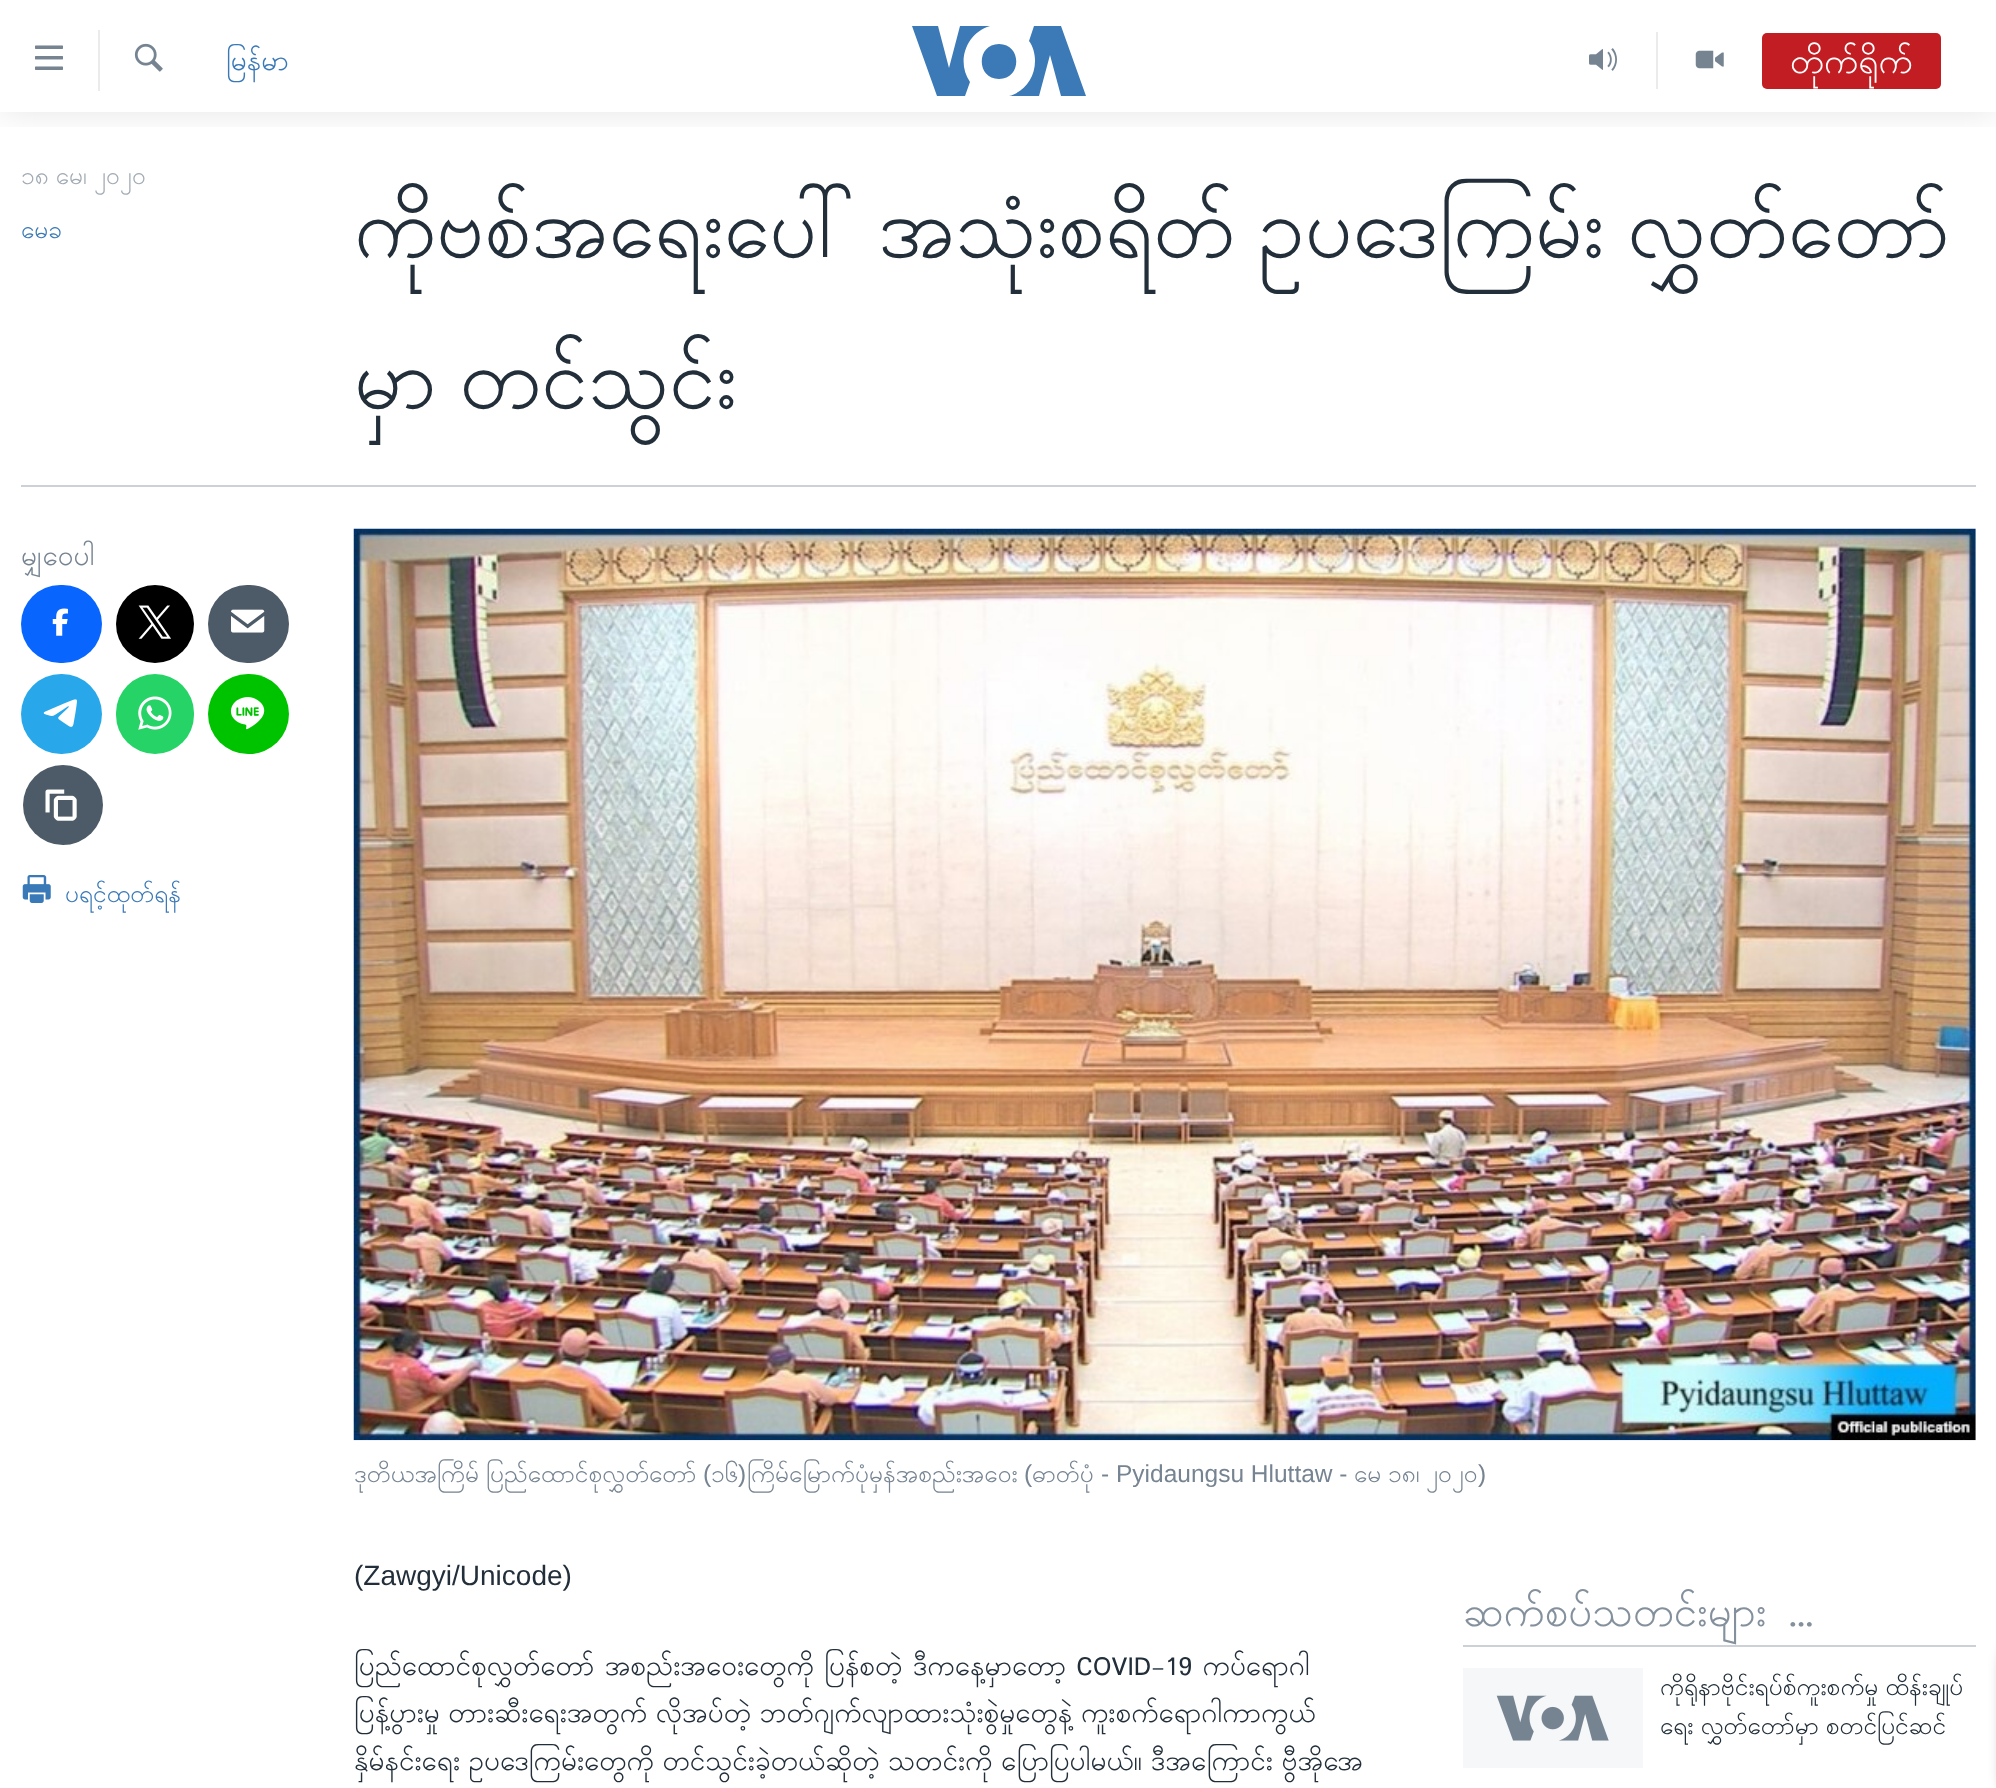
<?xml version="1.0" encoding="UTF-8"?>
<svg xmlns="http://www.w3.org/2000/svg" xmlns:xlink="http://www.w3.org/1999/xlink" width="1996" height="1788">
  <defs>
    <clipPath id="clip1"><rect x="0" y="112" width="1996" height="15" /></clipPath>
  </defs>
  <rect width="100%" height="100%" fill="#ffffff" />
  <g clip-path="url(#clip1)">
    <rect width="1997" height="112" fill="#000000" fill-opacity="0.1" filter="blur(17.5px)" />
  </g>
  <image x="35" y="45" width="28" height="25" xlink:href="image1.png" />
  <rect x="98" y="30" width="2" height="61" fill="#ebebeb" />
  <image x="134" y="43" width="29" height="29" xlink:href="image2.png" />
  <path d="M 970 82 l -5 14 h -28 l -25 -70 h 26 l 11 42 l 11 -42 h 30 c -24 7 -34 36 -20 56 z m 29 -38 c -23 0 -23 35 0 35 c 23 0 23 -35 0 -35 z m 36 17 c 0 17 -11 31 -26 35 h 30 l 11 -41 l 11 41 h 25 l -25 -70 h -27 l -5 15 c 4 5 6 13 6 20 z" fill="#3b79b7" />
  <rect x="1656" y="32" width="2" height="57" fill="#ebebeb" />
  <image x="1589" y="48" width="28" height="23" xlink:href="image3.png" />
  <image x="1695" y="50" width="29" height="19" xlink:href="image4.png" />
  <rect x="1762" y="33" width="179" height="56" rx="5" fill="#c11d22" />
  <rect x="21" y="485" width="1955" height="2" fill="#cbd1d6" />
  <rect x="21" y="585" width="81" height="78" rx="39" fill="#0866ff" />
  <image x="52" y="608" width="16" height="28" xlink:href="image5.png" />
  <circle cx="155" cy="624" r="39" fill="#000000" />
  <image x="138" y="605" width="33" height="34" xlink:href="image6.png" />
  <rect x="208" y="585" width="81" height="78" rx="39" fill="#4d5a67" />
  <image x="231" y="609" width="34" height="24" xlink:href="image7.png" />
  <rect x="21" y="674" width="81" height="80" rx="40" fill="#28a8ea" />
  <image x="43" y="699" width="34" height="28" xlink:href="image8.png" />
  <rect x="116" y="674" width="78" height="80" rx="39" fill="#25d366" />
  <image x="138" y="696" width="34" height="34" xlink:href="image9.png" />
  <rect x="208" y="674" width="81" height="80" rx="40" fill="#00c300" />
  <image x="230" y="697" width="35" height="33" xlink:href="image10.png" />
  <circle cx="63" cy="805" r="40" fill="#4d5a67" />
  <image x="45" y="789" width="32" height="32" xlink:href="image11.png" />
  <image x="22" y="875" width="29" height="28" xlink:href="image12.png" />
  <rect x="1975" y="529" width="1" height="911" fill="#f6f7f8" />
  <image x="353" y="528" width="1623" height="913" xlink:href="image13.png" />
  <rect x="1463" y="1645" width="513" height="2" fill="#cbd1d6" />
  <rect x="1463" y="1668" width="180" height="100" fill="#f6f7f8" />
  <image x="1496" y="1695" width="113" height="46" xlink:href="image14.png" />
  <rect x="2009" y="1652" width="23" height="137" rx="9" fill="#000000" fill-opacity="0.85" filter="blur(9px)" />
  <text x="226" y="70" style="font-family: Padauk; font-size: 28px; fill: #3a79b7">မြန်မာ</text>
  <text x="1790" y="73" style="font-family: Padauk; font-size: 35px; fill: #ffffff">တိုက်ရိုက်</text>
  <text x="21" y="184" word-spacing="-2" style="font-family: Padauk; font-size: 24.5px; fill: #a1aab4">၁၈ မေ၊ ၂၀၂၀</text>
  <text x="21" y="238" style="font-family: Padauk; font-size: 24.5px; fill: #3a79b7">မေခ</text>
  <text x="354" y="257" word-spacing="-8" style="font-family: Padauk; font-size: 84px; fill: #222f3a">ကိုဗစ်အရေးပေါ် အသုံးစရိတ် ဥပဒေကြမ်း လွှတ်တော်</text>
  <text x="354" y="408" word-spacing="-8" style="font-family: Padauk; font-size: 84px; fill: #222f3a">မှာ တင်သွင်း</text>
  <text x="21" y="565" style="font-family: Padauk; font-size: 28px; fill: #768492">မျှဝေပါ</text>
  <text x="65" y="902" style="font-family: Padauk; font-size: 24.5px; fill: #3a79b7">ပရင့်ထုတ်ရန်</text>
  <text x="354" y="1482" style="font-family: Padauk; font-size: 24.5px; fill: #768492">ဒုတိယအကြိမ်</text>
  <text x="486" y="1482" style="font-family: Padauk; font-size: 24.5px; fill: #768492">ပြည်ထောင်စုလွှတ်တော်</text>
  <text x="703" y="1482" style="font-family: Liberation Sans; font-size: 24.5px; fill: #768492">(</text>
  <text x="711" y="1482" style="font-family: Padauk; font-size: 24.5px; fill: #768492">၁၆</text>
  <text x="738" y="1482" style="font-family: Liberation Sans; font-size: 24.5px; fill: #768492">)</text>
  <text x="747" y="1482" style="font-family: Padauk; font-size: 24.5px; fill: #768492">ကြိမ်မြောက်ပုံမှန်အစည်းအဝေး</text>
  <text x="1024" y="1482" style="font-family: Liberation Sans; font-size: 24.5px; fill: #768492">(</text>
  <text x="1032" y="1482" style="font-family: Padauk; font-size: 24.5px; fill: #768492">ဓာတ်ပုံ</text>
  <text x="1101" y="1482" style="font-family: Liberation Sans; font-size: 24.5px; fill: #768492">- Pyidaungsu Hluttaw -</text>
  <text x="1354" y="1482" style="font-family: Padauk; font-size: 24.5px; fill: #768492">မေ</text>
  <text x="1388" y="1482" style="font-family: Padauk; font-size: 24.5px; fill: #768492">၁၈၊</text>
  <text x="1426" y="1482" style="font-family: Padauk; font-size: 24.5px; fill: #768492">၂၀၂၀</text>
  <text x="1478" y="1482" style="font-family: Liberation Sans; font-size: 24.5px; fill: #768492">)</text>
  <text x="354" y="1585" style="font-family: Liberation Sans; font-size: 28px; fill: #222f3a">(Zawgyi/Unicode)</text>
  <text x="354" y="1675" style="font-family: Padauk; font-size: 28px; fill: #222f3a">ပြည်ထောင်စုလွှတ်တော် အစည်းအဝေးတွေကို ပြန်စတဲ့ ဒီကနေ့မှာတော့ COVID-19 ကပ်ရောဂါ</text>
  <text x="354" y="1722" word-spacing="-1.75" style="font-family: Padauk; font-size: 28px; fill: #222f3a">ပြန့်ပွားမှု တားဆီးရေးအတွက် လိုအပ်တဲ့ ဘတ်ဂျက်လျာထားသုံးစွဲမှုတွေနဲ့ ကူးစက်ရောဂါကာကွယ်</text>
  <text x="354" y="1770" word-spacing="-1.75" style="font-family: Padauk; font-size: 28px; fill: #222f3a">နှိမ်နင်းရေး ဥပဒေကြမ်းတွေကို တင်သွင်းခဲ့တယ်ဆိုတဲ့ သတင်းကို ပြောပြပါမယ်။ ဒီအကြောင်း ဗွီအိုအေ</text>
  <text x="1463" y="1626" word-spacing="7" style="font-family: Padauk; font-size: 42px; fill: #84919d">ဆက်စပ်သတင်းများ ...</text>
  <text x="1660" y="1695" word-spacing="-2" style="font-family: Padauk; font-size: 24.5px; fill: #222f3a">ကိုရိုနာဗိုင်းရပ်စ်ကူးစက်မှု ထိန်းချုပ်</text>
  <text x="1660" y="1734" word-spacing="-2" style="font-family: Padauk; font-size: 24.5px; fill: #222f3a">ရေး လွှတ်တော်မှာ စတင်ပြင်ဆင်</text>
</svg>
